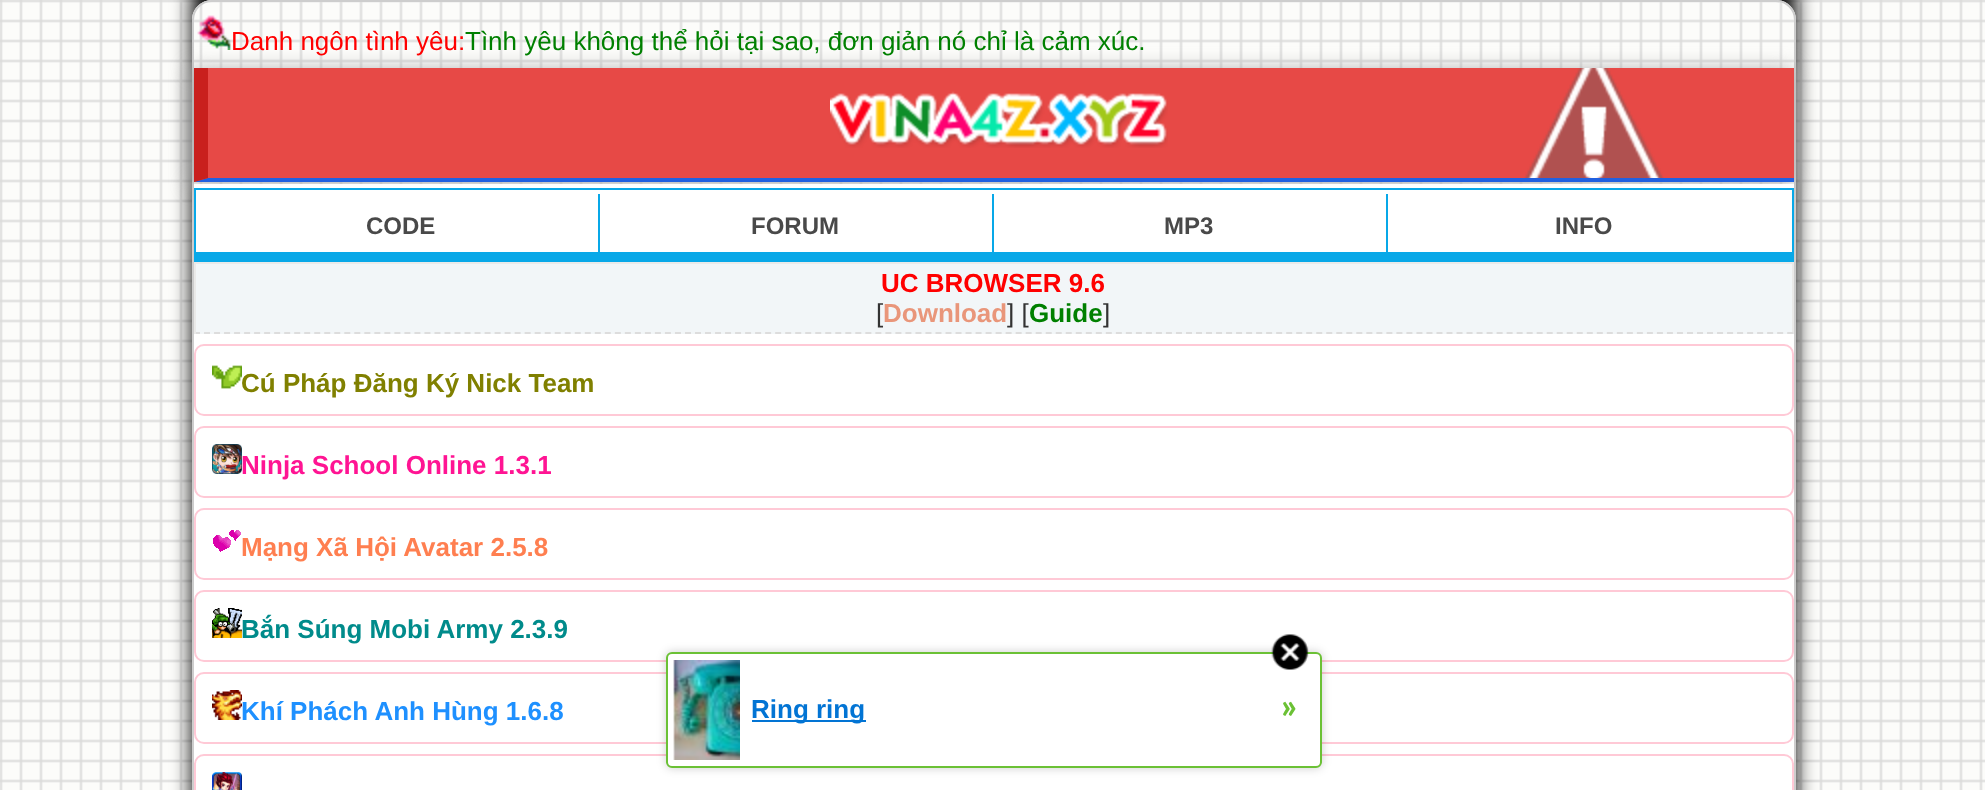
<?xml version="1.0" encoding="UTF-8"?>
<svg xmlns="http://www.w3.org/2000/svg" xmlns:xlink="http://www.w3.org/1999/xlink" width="1985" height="790">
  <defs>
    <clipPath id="clip1"><path d="M 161 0 h 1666 v 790 h -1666 z m 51 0 h 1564 c 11 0 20 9 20 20 v 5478 c 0 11 -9 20 -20 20 h -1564 c -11 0 -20 -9 -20 -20 v -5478 c 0 -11 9 -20 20 -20 z" clip-rule="evenodd" /></clipPath>
  </defs>
  <rect width="100%" height="100%" fill="#ffffff" />
  <image x="0" y="0" width="1985" height="790" xlink:href="image1.png" />
  <g clip-path="url(#clip1)">
    <rect x="192" y="-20" width="1604" height="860" rx="20" fill="#000000" filter="blur(10px)" />
  </g>
  <rect x="193" y="1" width="1602" height="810" rx="19" fill="none" stroke="#cdcdcd" stroke-width="2" />
  <rect x="192" y="70" width="1600" height="114" fill="#aaaaaa" filter="blur(10px)" />
  <image x="197" y="15" width="34" height="35" xlink:href="image2.png" />
  <rect x="194" y="68" width="1600" height="114" fill="#e74946" />
  <image x="1524" y="68" width="140" height="110" xlink:href="image3.png" />
  <path d="M 1794 182 h -1600 l 14 -4 h 1586 z" fill="#2060e0" />
  <path d="M 194 182 v -114 h 14 v 110 z" fill="#c9201d" />
  <image x="830" y="91" width="338" height="57" xlink:href="image4.png" />
  <rect x="194" y="184" width="1600" height="606" fill="#ffffff" />
  <rect x="194" y="188" width="1600" height="2" fill="#08a8e8" />
  <rect x="1792" y="188" width="2" height="64" fill="#08a8e8" />
  <rect x="196" y="252" width="1598" height="10" fill="#08a8e8" />
  <rect x="194" y="188" width="2" height="74" fill="#08a8e8" />
  <rect x="598" y="194" width="2" height="58" fill="#08a8e8" />
  <rect x="992" y="194" width="2" height="58" fill="#08a8e8" />
  <rect x="1386" y="194" width="2" height="58" fill="#08a8e8" />
  <rect x="196" y="264" width="1596" height="70" fill="#f2f6f8" />
  <rect x="194" y="262" width="1600" height="2" fill="#eaeae9" />
  <rect x="1792" y="262" width="2" height="72" fill="#eaeae9" />
  <path d="M 194 333 h 1600" fill="none" stroke="#dddddd" stroke-width="2" stroke-dasharray="6 4.02" />
  <rect x="194" y="262" width="2" height="72" fill="#eaeae9" />
  <rect x="195" y="345" width="1598" height="70" rx="9" fill="none" stroke="#ffc9d6" stroke-width="2" />
  <image x="212" y="365" width="30" height="24" xlink:href="image5.png" />
  <rect x="195" y="427" width="1598" height="70" rx="9" fill="none" stroke="#ffc9d6" stroke-width="2" />
  <image x="212" y="444" width="30" height="30" xlink:href="image6.png" />
  <rect x="195" y="509" width="1598" height="70" rx="9" fill="none" stroke="#ffc9d6" stroke-width="2" />
  <image x="213" y="530" width="28" height="22" xlink:href="image7.png" />
  <rect x="195" y="591" width="1598" height="70" rx="9" fill="none" stroke="#ffc9d6" stroke-width="2" />
  <image x="212" y="608" width="30" height="30" xlink:href="image8.png" />
  <rect x="195" y="673" width="1598" height="70" rx="9" fill="none" stroke="#ffc9d6" stroke-width="2" />
  <image x="212" y="690" width="30" height="30" xlink:href="image9.png" />
  <rect x="195" y="755" width="1598" height="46" rx="9" fill="none" stroke="#ffc9d6" stroke-width="2" />
  <image x="212" y="772" width="30" height="18" xlink:href="image10.png" />
  <rect x="666" y="652" width="656" height="116" rx="6" fill="#000000" fill-opacity="0.2" filter="blur(5px)" />
  <rect x="667" y="653" width="654" height="114" rx="5" fill="#ffffff" stroke="#6bc135" stroke-width="2" />
  <image x="1271" y="634" width="38" height="36" xlink:href="image11.png" />
  <image x="673" y="660" width="67" height="100" xlink:href="image12.png" />
  <rect x="752" y="720" width="114" height="2" fill="#0274d4" />
  <text x="231" y="50" style="font-family: Liberation Sans; font-size: 26px; fill: #ff0000">Danh ngôn tình yêu:</text>
  <text x="465" y="50" style="font-family: Liberation Sans; font-size: 26px; fill: #008000">Tình yêu không thể hỏi tại sao, đơn giản nó chỉ là cảm xúc.</text>
  <text x="366" y="234" style="font-family: Liberation Sans; font-size: 24px; font-weight: bold; fill: #494949">CODE</text>
  <text x="751" y="234" style="font-family: Liberation Sans; font-size: 24px; font-weight: bold; fill: #494949">FORUM</text>
  <text x="1164" y="234" style="font-family: Liberation Sans; font-size: 24px; font-weight: bold; fill: #494949">MP3</text>
  <text x="1555" y="234" style="font-family: Liberation Sans; font-size: 24px; font-weight: bold; fill: #494949">INFO</text>
  <text x="881" y="292" style="font-family: Liberation Sans; font-size: 26px; font-weight: bold; fill: #ff0000">UC BROWSER 9.6</text>
  <text x="876" y="322" style="font-family: Liberation Sans; font-size: 26px; fill: #333333">[</text>
  <text x="883" y="322" style="font-family: Liberation Sans; font-size: 26px; font-weight: bold; fill: #e9967a">Download</text>
  <text x="1007" y="322" style="font-family: Liberation Sans; font-size: 26px; fill: #333333">] [</text>
  <text x="1029" y="322" style="font-family: Liberation Sans; font-size: 26px; font-weight: bold; fill: #008000">Guide</text>
  <text x="1103" y="322" style="font-family: Liberation Sans; font-size: 26px; fill: #333333">]</text>
  <text x="241" y="392" style="font-family: Liberation Sans; font-size: 26px; font-weight: bold; fill: #808000">Cú Pháp Đăng Ký Nick Team</text>
  <text x="241" y="474" style="font-family: Liberation Sans; font-size: 26px; font-weight: bold; fill: #ff1493">Ninja School Online 1.3.1</text>
  <text x="241" y="556" style="font-family: Liberation Sans; font-size: 26px; font-weight: bold; fill: #ff7f50">Mạng Xã Hội Avatar 2.5.8</text>
  <text x="241" y="638" style="font-family: Liberation Sans; font-size: 26px; font-weight: bold; fill: #008b8b">Bắn Súng Mobi Army 2.3.9</text>
  <text x="241" y="720" style="font-family: Liberation Sans; font-size: 26px; font-weight: bold; fill: #1e90ff">Khí Phách Anh Hùng 1.6.8</text>
  <text x="751" y="718" style="font-family: Liberation Sans; font-size: 26px; font-weight: bold; fill: #0274d4">Ring ring</text>
  <text x="1280" y="718" style="font-family: Carlito; font-size: 36px; font-weight: bold; fill: #6bc135">»</text>
</svg>
